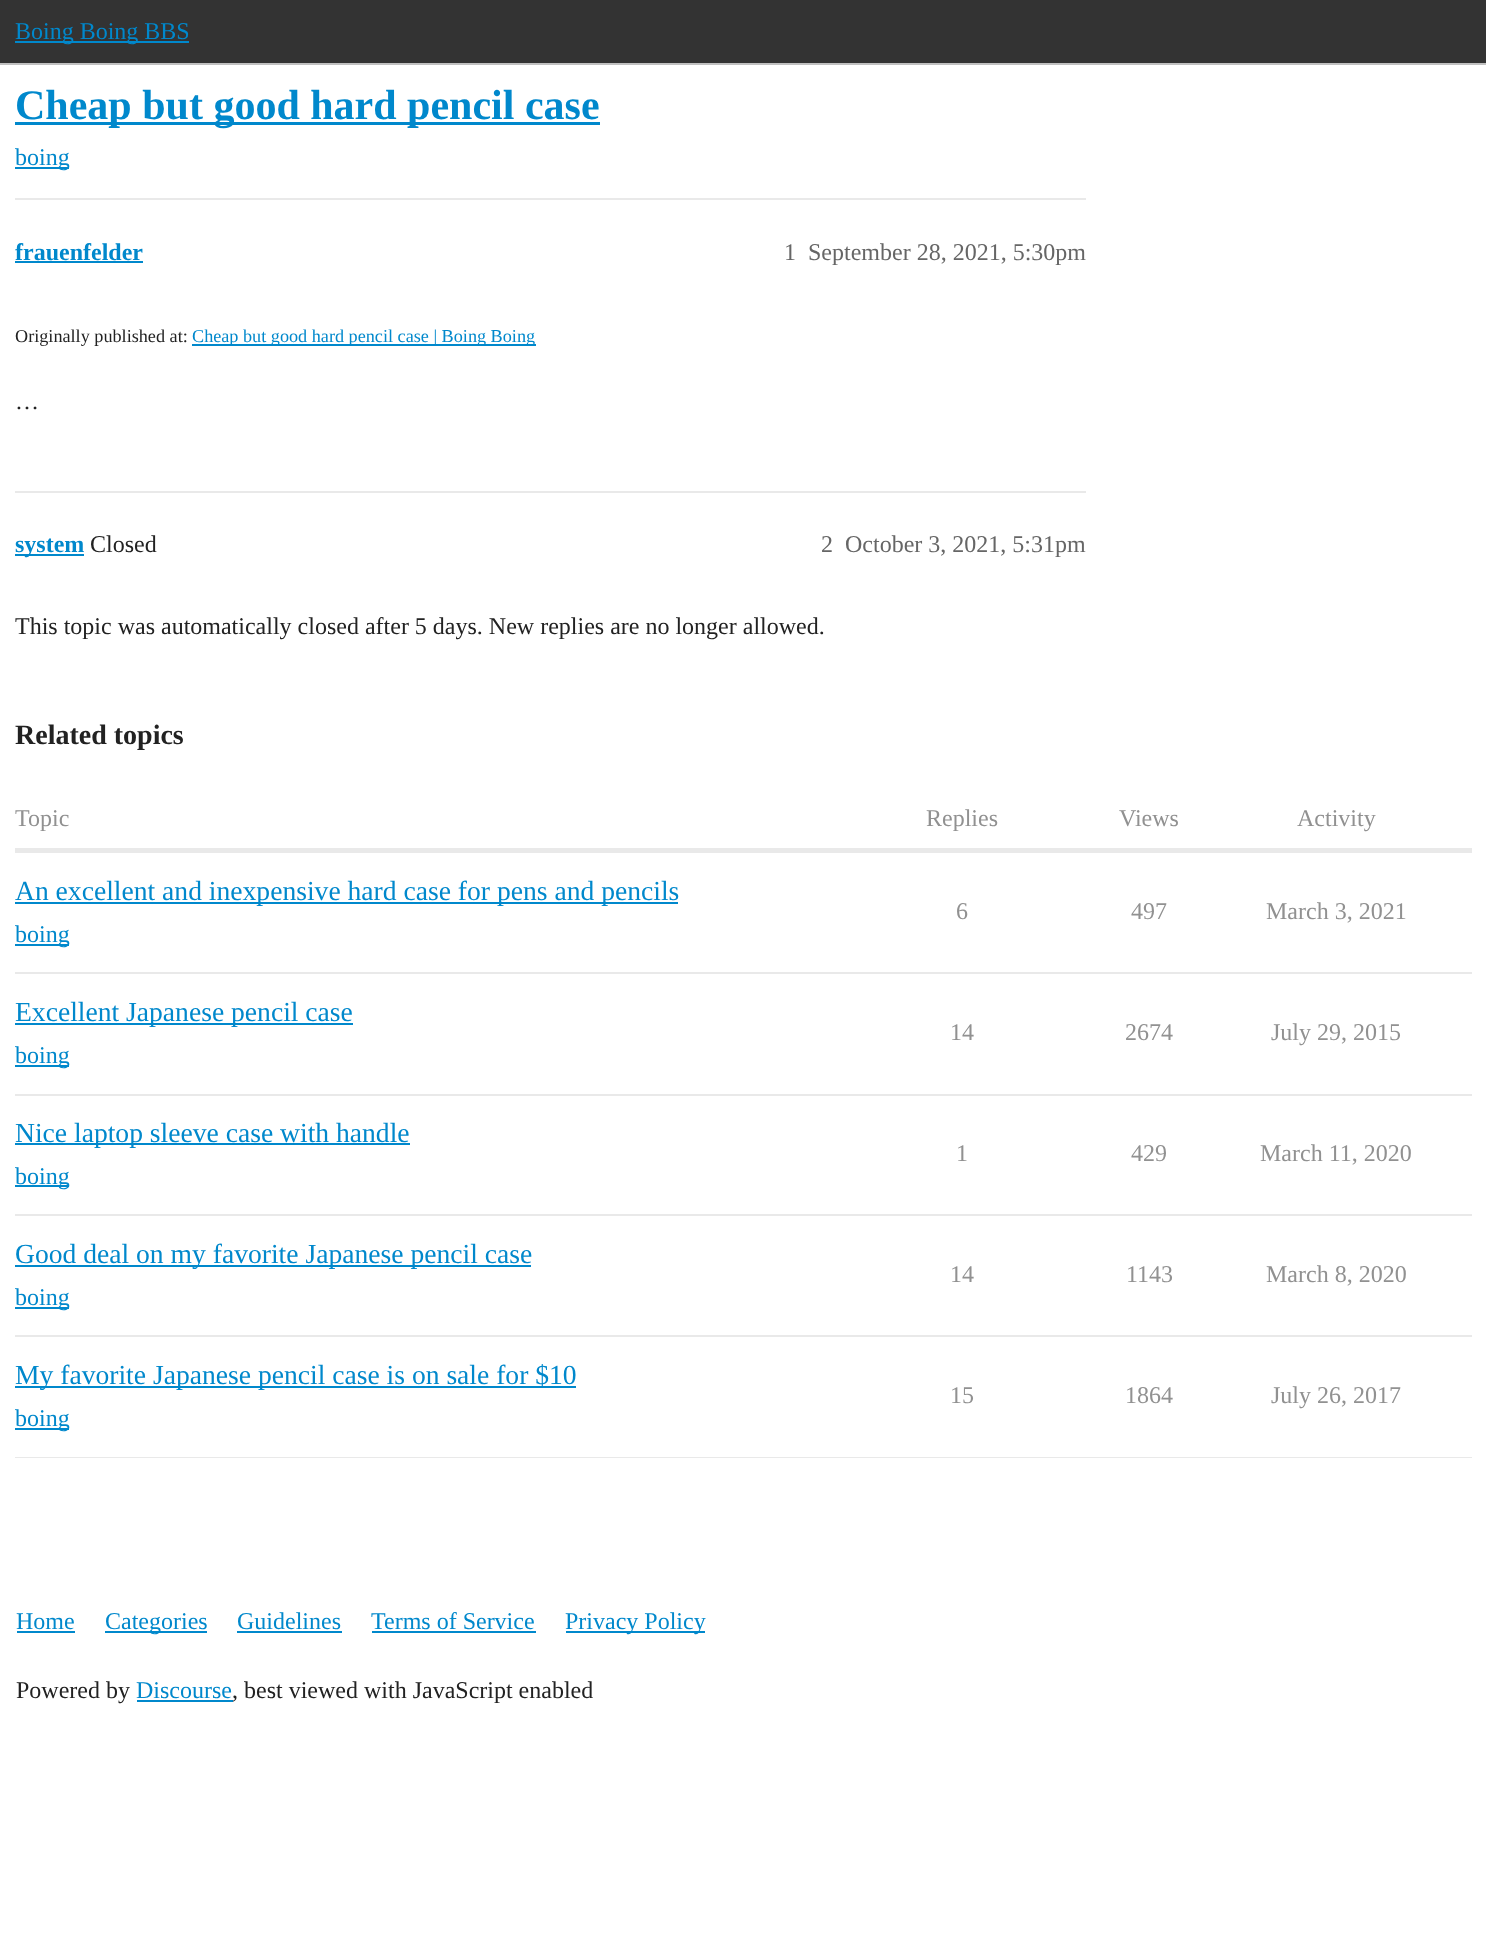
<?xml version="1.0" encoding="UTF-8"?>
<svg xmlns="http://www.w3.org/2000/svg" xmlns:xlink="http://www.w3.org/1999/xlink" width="1486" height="1935">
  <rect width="100%" height="100%" fill="#ffffff" />
  <rect width="1486" height="63" fill="#333333" />
  <rect y="63" width="1486" height="2" fill="#c0c0c0" />
  <rect x="15" y="41" width="174" height="2" fill="#0088cc" />
  <rect x="15" y="122" width="585" height="3" fill="#0088cc" />
  <rect x="15" y="167" width="54" height="2" fill="#0088cc" />
  <rect x="15" y="198" width="1071" height="2" fill="#e9e9e9" />
  <rect x="15" y="261" width="128" height="2" fill="#0088cc" />
  <rect x="192" y="344" width="344" height="2" fill="#0088cc" />
  <rect x="15" y="491" width="1071" height="2" fill="#e9e9e9" />
  <rect x="15" y="554" width="69" height="2" fill="#0088cc" />
  <rect x="15" y="848" width="1457" height="5" fill="#e9e9e9" />
  <rect x="15" y="972" width="1457" height="2" fill="#e9e9e9" />
  <rect x="15" y="902" width="663" height="2" fill="#0088cc" />
  <rect x="15" y="944" width="54" height="2" fill="#0088cc" />
  <rect x="15" y="1094" width="1457" height="2" fill="#e9e9e9" />
  <rect x="15" y="1023" width="338" height="2" fill="#0088cc" />
  <rect x="15" y="1065" width="54" height="2" fill="#0088cc" />
  <rect x="15" y="1214" width="1457" height="2" fill="#e9e9e9" />
  <rect x="15" y="1143" width="395" height="2" fill="#0088cc" />
  <rect x="15" y="1185" width="54" height="2" fill="#0088cc" />
  <rect x="15" y="1335" width="1457" height="2" fill="#e9e9e9" />
  <rect x="15" y="1265" width="516" height="2" fill="#0088cc" />
  <rect x="15" y="1307" width="54" height="2" fill="#0088cc" />
  <rect x="15" y="1457" width="1457" height="1" fill="#e9e9e9" />
  <rect x="15" y="1386" width="561" height="2" fill="#0088cc" />
  <rect x="15" y="1428" width="54" height="2" fill="#0088cc" />
  <rect x="17" y="1631" width="58" height="2" fill="#0088cc" />
  <rect x="105" y="1631" width="102" height="2" fill="#0088cc" />
  <rect x="237" y="1631" width="105" height="2" fill="#0088cc" />
  <rect x="372" y="1631" width="164" height="2" fill="#0088cc" />
  <rect x="566" y="1631" width="139" height="2" fill="#0088cc" />
  <rect x="137" y="1700" width="96" height="2" fill="#0088cc" />
  <text x="15" y="39" style="font-family: Liberation Serif; font-size: 24px; fill: #0088cc">Boing Boing BBS</text>
  <text x="15" y="119" style="font-family: Liberation Serif; font-size: 42px; font-weight: bold; fill: #0088cc">Cheap but good hard pencil case</text>
  <text x="15" y="165" style="font-family: Liberation Serif; font-size: 24px; fill: #0088cc">boing</text>
  <text x="15" y="260" style="font-family: Liberation Serif; font-size: 24px; font-weight: bold; fill: #0088cc">frauenfelder</text>
  <text x="784" y="260" style="font-family: Liberation Serif; font-size: 24px; fill: #666666">1</text>
  <text x="808" y="260" style="font-family: Liberation Serif; font-size: 24px; fill: #666666">September 28, 2021, 5:30pm</text>
  <text x="15" y="342" style="font-family: Liberation Serif; font-size: 18.2px; fill: #222222">Originally published at:</text>
  <text x="192" y="342" style="font-family: Liberation Serif; font-size: 18.2px; fill: #0088cc">Cheap but good hard pencil case | Boing Boing</text>
  <text x="15" y="409" style="font-family: Liberation Serif; font-size: 24px; fill: #222222">…</text>
  <text x="15" y="552" style="font-family: Liberation Serif; font-size: 24px; font-weight: bold; fill: #0088cc">system</text>
  <text x="90" y="552" style="font-family: Liberation Serif; font-size: 24px; fill: #222222">Closed</text>
  <text x="821" y="552" style="font-family: Liberation Serif; font-size: 24px; fill: #666666">2</text>
  <text x="845" y="552" style="font-family: Liberation Serif; font-size: 24px; fill: #666666">October 3, 2021, 5:31pm</text>
  <text x="15" y="634" style="font-family: Liberation Serif; font-size: 24px; fill: #222222">This topic was automatically closed after 5 days. New replies are no longer allowed.</text>
  <text x="15" y="744" style="font-family: Liberation Serif; font-size: 28px; font-weight: bold; fill: #222222">Related topics</text>
  <text x="15" y="826" style="font-family: Liberation Serif; font-size: 24px; fill: #919191">Topic</text>
  <text x="926" y="826" style="font-family: Liberation Serif; font-size: 24px; fill: #919191">Replies</text>
  <text x="1119" y="826" style="font-family: Liberation Serif; font-size: 24px; fill: #919191">Views</text>
  <text x="1297" y="826" style="font-family: Liberation Serif; font-size: 24px; fill: #919191">Activity</text>
  <text x="15" y="900" style="font-family: Liberation Serif; font-size: 27.6px; fill: #0088cc">An excellent and inexpensive hard case for pens and pencils</text>
  <text x="15" y="942" style="font-family: Liberation Serif; font-size: 24px; fill: #0088cc">boing</text>
  <text x="956" y="919" style="font-family: Liberation Serif; font-size: 24px; fill: #919191">6</text>
  <text x="1131" y="919" style="font-family: Liberation Serif; font-size: 24px; fill: #919191">497</text>
  <text x="1266" y="919" style="font-family: Liberation Serif; font-size: 24px; fill: #919191">March 3, 2021</text>
  <text x="15" y="1021" style="font-family: Liberation Serif; font-size: 27.6px; fill: #0088cc">Excellent Japanese pencil case</text>
  <text x="15" y="1063" style="font-family: Liberation Serif; font-size: 24px; fill: #0088cc">boing</text>
  <text x="950" y="1040" style="font-family: Liberation Serif; font-size: 24px; fill: #919191">14</text>
  <text x="1125" y="1040" style="font-family: Liberation Serif; font-size: 24px; fill: #919191">2674</text>
  <text x="1271" y="1040" style="font-family: Liberation Serif; font-size: 24px; fill: #919191">July 29, 2015</text>
  <text x="15" y="1142" style="font-family: Liberation Serif; font-size: 27.6px; fill: #0088cc">Nice laptop sleeve case with handle</text>
  <text x="15" y="1184" style="font-family: Liberation Serif; font-size: 24px; fill: #0088cc">boing</text>
  <text x="956" y="1161" style="font-family: Liberation Serif; font-size: 24px; fill: #919191">1</text>
  <text x="1131" y="1161" style="font-family: Liberation Serif; font-size: 24px; fill: #919191">429</text>
  <text x="1260" y="1161" style="font-family: Liberation Serif; font-size: 24px; fill: #919191">March 11, 2020</text>
  <text x="15" y="1263" style="font-family: Liberation Serif; font-size: 27.6px; fill: #0088cc">Good deal on my favorite Japanese pencil case</text>
  <text x="15" y="1305" style="font-family: Liberation Serif; font-size: 24px; fill: #0088cc">boing</text>
  <text x="950" y="1282" style="font-family: Liberation Serif; font-size: 24px; fill: #919191">14</text>
  <text x="1126" y="1282" style="font-family: Liberation Serif; font-size: 24px; fill: #919191">1143</text>
  <text x="1266" y="1282" style="font-family: Liberation Serif; font-size: 24px; fill: #919191">March 8, 2020</text>
  <text x="15" y="1384" style="font-family: Liberation Serif; font-size: 27.6px; fill: #0088cc">My favorite Japanese pencil case is on sale for $10</text>
  <text x="15" y="1426" style="font-family: Liberation Serif; font-size: 24px; fill: #0088cc">boing</text>
  <text x="950" y="1403" style="font-family: Liberation Serif; font-size: 24px; fill: #919191">15</text>
  <text x="1125" y="1403" style="font-family: Liberation Serif; font-size: 24px; fill: #919191">1864</text>
  <text x="1271" y="1403" style="font-family: Liberation Serif; font-size: 24px; fill: #919191">July 26, 2017</text>
  <text x="16" y="1629" style="font-family: Liberation Serif; font-size: 24px; fill: #0088cc">Home</text>
  <text x="105" y="1629" style="font-family: Liberation Serif; font-size: 24px; fill: #0088cc">Categories</text>
  <text x="237" y="1629" style="font-family: Liberation Serif; font-size: 24px; fill: #0088cc">Guidelines</text>
  <text x="371" y="1629" style="font-family: Liberation Serif; font-size: 24px; fill: #0088cc">Terms of Service</text>
  <text x="565" y="1629" style="font-family: Liberation Serif; font-size: 24px; fill: #0088cc">Privacy Policy</text>
  <text x="16" y="1698" style="font-family: Liberation Serif; font-size: 24px; fill: #222222">Powered by</text>
  <text x="136" y="1698" style="font-family: Liberation Serif; font-size: 24px; fill: #0088cc">Discourse</text>
  <text x="232" y="1698" style="font-family: Liberation Serif; font-size: 24px; fill: #222222">, best viewed with JavaScript enabled</text>
</svg>
